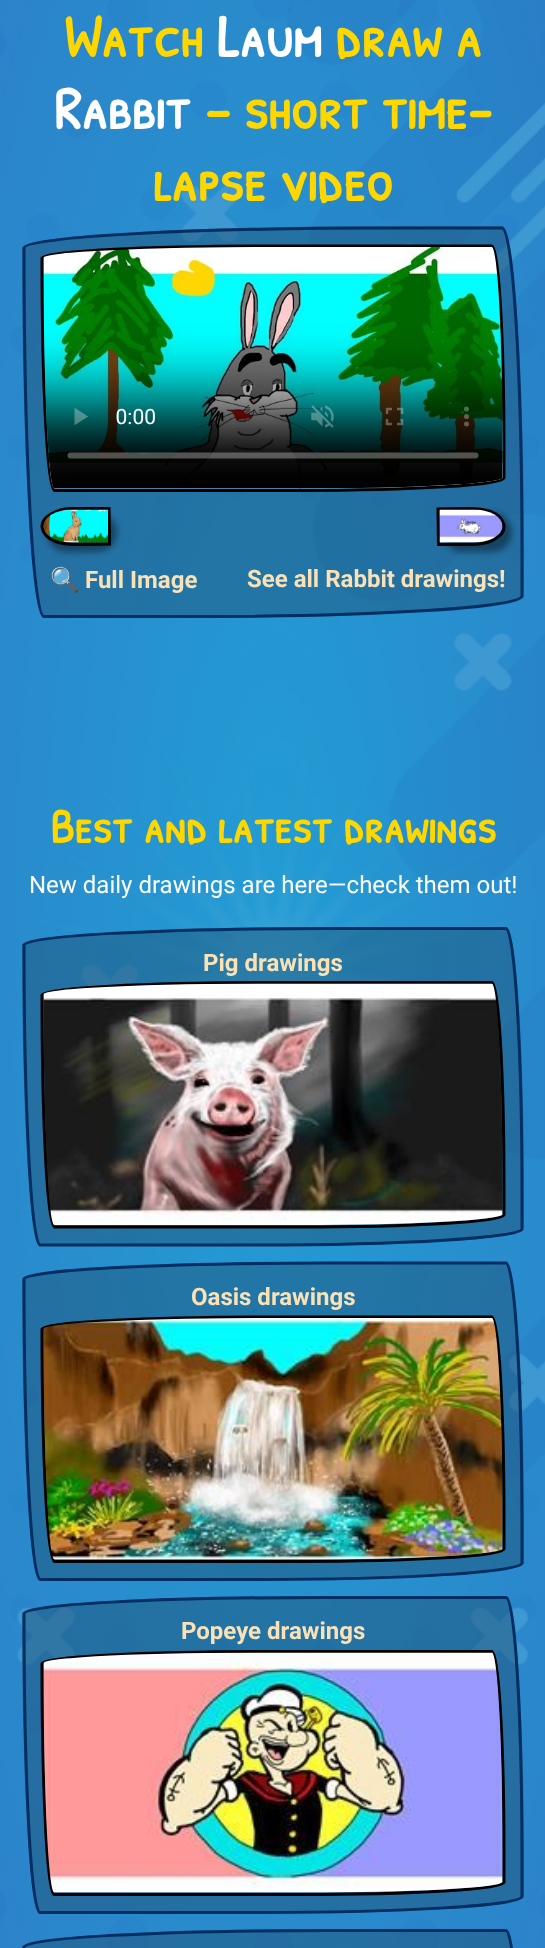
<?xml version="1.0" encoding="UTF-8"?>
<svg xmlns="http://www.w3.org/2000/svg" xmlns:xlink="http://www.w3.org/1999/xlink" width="545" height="1948">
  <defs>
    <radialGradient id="g1" gradientUnits="userSpaceOnUse" cx="0" cy="0" r="1" gradientTransform="matrix(386 0 0 1378 273 974)"><stop offset="0" stop-color="#229dd5" /><stop offset="1" stop-color="#2c83c9" /></radialGradient>
  </defs>
  <rect width="100%" height="100%" fill="#ffffff" />
  <rect width="545" height="1948" fill="url(#g1)" />
  <image x="0" y="0" width="545" height="1948" xlink:href="image1.png" />
  <path d="M 392 226 h 110 c 12 0 22 147 22 327 v 43 c 0 12 -147 22 -327 22 h -153 c -12 0 -22 -166 -22 -370 c 0 -12 166 -22 370 -22 z" fill="#1f4665" fill-opacity="0.4" />
  <path d="M 392 228 h 110 c 11 0 20 145.5 20 325 v 43 c 0 11.5 -145.5 20.5 -325 20.5 h -153 c -11 0 -20 -165 -20 -368.5 c 0 -11 165 -20 368 -20 z" fill="none" stroke="#002e63" stroke-width="3" />
  <path d="M 274 246 h 218 c 6.5 0 12 91.5 12 205 v 27 c 0 7 -91.5 12.5 -205 12.5 h -244.5 c -7 0 -12.5 -104 -12.5 -232.5 c 0 -6.5 104 -12 232 -12 z" fill="none" stroke="#000000" stroke-width="3" />
  <image x="43" y="247" width="460" height="242" xlink:href="image2.png" />
  <rect x="47" y="513" width="70" height="39" rx="19.5" fill="#000000" fill-opacity="0.4" filter="blur(3px)" />
  <path d="M 72.5 508.5 h 36.5 l 0.5 35.5 l -27 0.5 c -9 0 -18.5 0.5 -27 -3 c -14 -5.5 -19.5 -19 -4.5 -27.5 c 6.5 -4 14 -5.5 21.5 -5.5 z" fill="none" stroke="#000000" stroke-width="3" />
  <image x="43" y="509" width="65" height="34" xlink:href="image3.png" />
  <rect x="443" y="513" width="69" height="39" rx="19.5" fill="#000000" fill-opacity="0.4" filter="blur(3px)" />
  <path d="M 468.5 508.5 c 7.5 0 15 0.5 22 3 c 14 5.5 19.5 19 4.5 27.5 c -11.5 7 -26 5.5 -39 5.5 h -17.5 l -0.5 -35.5 z" fill="none" stroke="#000000" stroke-width="3" />
  <image x="439" y="509" width="64" height="34" xlink:href="image4.png" />
  <path d="M 324 927 h 182 c 10 0 18 119 18 266 v 36 c 0 10 -120 17 -267 17 h -217 c -10 0 -18 -135 -18 -301 c 0 -10 136 -18 302 -18 z" fill="#1f4665" fill-opacity="0.4" />
  <path d="M 324 928.5 h 182 c 8.5 0 16 118.5 16 264.5 v 36 c 0 8.5 -118.5 16 -265 16 h -217 c -8.5 0 -16 -134.5 -16 -300 c 0 -9 134.5 -16.5 300 -16.5 z" fill="none" stroke="#002e63" stroke-width="3" />
  <path d="M 274 982.5 h 218 c 6.5 0 12 91.5 12 204.5 v 28 c 0 6.5 -91.5 12 -205 12 h -244.5 c -7 0 -12.5 -104 -12.5 -232 c 0 -7 104 -12.5 232 -12.5 z" fill="none" stroke="#000000" stroke-width="3" />
  <image x="43" y="983" width="460" height="242" xlink:href="image5.png" />
  <path d="M 324 1262 h 182 c 10 0 18 119 18 266 v 35 c 0 10 -120 18 -267 18 h -217 c -10 0 -18 -135 -18 -302 c 0 -10 136 -17 302 -17 z" fill="#1f4665" fill-opacity="0.4" />
  <path d="M 324 1263 h 182 c 8.5 0 16 118.5 16 265 v 35 c 0 9 -118.5 16.5 -265 16.5 h -217 c -8.5 0 -16 -134.5 -16 -300.5 c 0 -8.5 134.5 -16 300 -16 z" fill="none" stroke="#002e63" stroke-width="3" />
  <path d="M 274 1317 h 218 c 6.5 0 12 91.5 12 205 v 27 c 0 7 -91.5 12.5 -205 12.5 h -244.5 c -7 0 -12.5 -104 -12.5 -232.5 c 0 -6.5 104 -12 232 -12 z" fill="none" stroke="#000000" stroke-width="3" />
  <image x="43" y="1318" width="460" height="242" xlink:href="image6.png" />
  <path d="M 323 1596 h 183 c 10 0 18 119 18 265 v 35 c 0 10 -119 18 -266 18 h -218 c -10 0 -18 -134 -18 -300 c 0 -10 135 -18 301 -18 z" fill="#1f4665" fill-opacity="0.4" />
  <path d="M 323 1597.5 h 183 c 9 0 16 118 16 263.5 v 35.5 c 0 9 -118 16 -263.5 16 h -218.5 c -9 0 -16 -134 -16 -299 c 0 -9 134 -16 299 -16 z" fill="none" stroke="#002e63" stroke-width="3" />
  <path d="M 273 1651.5 h 219 c 6.5 0 12 91 12 203.5 v 27.5 c 0 6.5 -91 12 -203.5 12 h -246.5 c -6.5 0 -12 -103.5 -12 -231 c 0 -6.5 103.5 -12 231 -12 z" fill="none" stroke="#000000" stroke-width="3" />
  <image x="43" y="1652" width="460" height="241" xlink:href="image7.png" />
  <path d="M 324 1929 h 182 c 10 0 18 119 18 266 v 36 c 0 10 -120 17 -267 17 h -217 c -10 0 -18 -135 -18 -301 c 0 -10 136 -18 302 -18 z" fill="#1f4665" fill-opacity="0.4" />
  <path d="M 324 1930.5 h 182 c 8.5 0 16 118.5 16 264.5 v 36 c 0 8.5 -118.5 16 -265 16 h -217 c -8.5 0 -16 -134.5 -16 -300 c 0 -9 134.5 -16.5 300 -16.5 z" fill="none" stroke="#002e63" stroke-width="3" />
  <text x="64" y="57" style="font-family: Patrick Hand SC; font-size: 60px; font-weight: bold; fill: #ffd700">Watch</text>
  <text x="217" y="57" style="font-family: Patrick Hand SC; font-size: 60px; font-weight: bold; fill: #ffffff">Laum</text>
  <text x="335" y="57" style="font-family: Patrick Hand SC; font-size: 60px; font-weight: bold; fill: #ffd700">draw a</text>
  <text x="54" y="129" style="font-family: Patrick Hand SC; font-size: 60px; font-weight: bold; fill: #ffffff">Rabbit</text>
  <text x="205" y="129" style="font-family: Patrick Hand SC; font-size: 60px; font-weight: bold; fill: #ffd700">– short time-</text>
  <text x="153" y="201" style="font-family: Patrick Hand SC; font-size: 60px; font-weight: bold; fill: #ffd700">lapse video</text>
  <text x="50" y="588" style="font-family: Noto Color Emoji; font-size: 24px; font-weight: bold; fill: #fae2b6">🔍</text>
  <text x="85" y="588" style="font-family: Roboto; font-size: 24px; font-weight: bold; fill: #fae2b6">Full Image</text>
  <text x="247" y="587" style="font-family: Roboto; font-size: 24px; font-weight: bold; fill: #fae2b6">See all Rabbit drawings!</text>
  <text x="50" y="843" style="font-family: Patrick Hand SC; font-size: 48px; font-weight: bold; fill: #ffd700">Best and latest drawings</text>
  <text x="29" y="893" style="font-family: Roboto; font-size: 24px; fill: #ffffff">New daily drawings are here—check them out!</text>
  <text x="203" y="971" style="font-family: Roboto; font-size: 24px; font-weight: bold; fill: #fae2b6">Pig drawings</text>
  <text x="191" y="1305" style="font-family: Roboto; font-size: 24px; font-weight: bold; fill: #fae2b6">Oasis drawings</text>
  <text x="181" y="1639" style="font-family: Roboto; font-size: 24px; font-weight: bold; fill: #fae2b6">Popeye drawings</text>
</svg>
